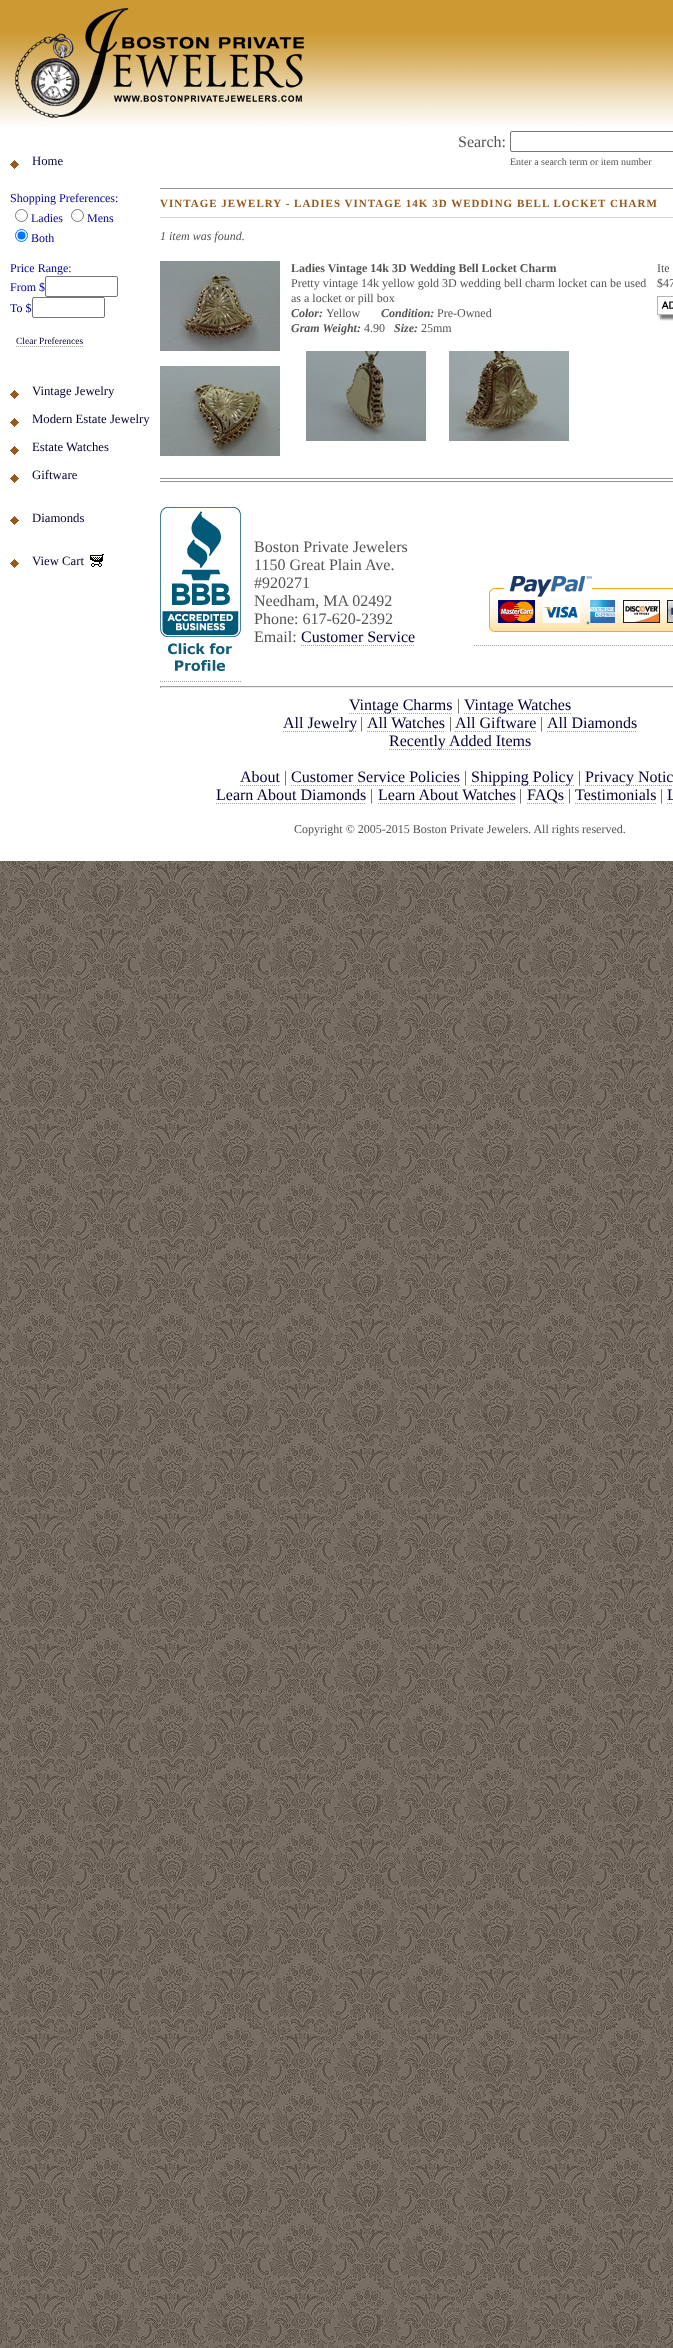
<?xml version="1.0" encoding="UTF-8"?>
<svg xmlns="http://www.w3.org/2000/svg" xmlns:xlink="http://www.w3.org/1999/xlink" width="673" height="2348">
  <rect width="100%" height="100%" fill="#ffffff" />
  <image x="0" y="861" width="673" height="1487" xlink:href="image1.png" />
  <image x="0" y="0" width="673" height="127" xlink:href="image2.png" />
  <image x="10" y="160" width="9" height="9" xlink:href="image3.png" />
  <circle cx="21.5" cy="215.5" r="6" fill="none" stroke="#767676" />
  <circle cx="77.5" cy="215.5" r="6" fill="none" stroke="#767676" />
  <circle cx="21.5" cy="235.5" r="6" fill="none" stroke="#0075ff" />
  <circle cx="21.5" cy="235.5" r="4" fill="#0075ff" />
  <rect x="45.5" y="276.5" width="72" height="20" rx="1.5" fill="none" stroke="#767676" />
  <rect x="32.5" y="297.5" width="72" height="20" rx="1.5" fill="none" stroke="#767676" />
  <path d="M 16 346.5 h 68" fill="none" stroke="#a4a4a2" stroke-dasharray="1 1" />
  <image x="10" y="390" width="9" height="9" xlink:href="image3.png" />
  <image x="10" y="418" width="9" height="9" xlink:href="image3.png" />
  <image x="10" y="446" width="9" height="9" xlink:href="image3.png" />
  <image x="10" y="474" width="9" height="9" xlink:href="image3.png" />
  <image x="10" y="516" width="9" height="9" xlink:href="image3.png" />
  <image x="10" y="559" width="9" height="9" xlink:href="image3.png" />
  <image x="90" y="554" width="14" height="13" xlink:href="image4.png" />
  <rect x="510.5" y="131.5" width="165" height="20" rx="1.5" fill="none" stroke="#767676" />
  <rect x="160" y="188" width="513" height="1" fill="#949492" />
  <rect x="160" y="217" width="513" height="1" fill="#d4d4d2" />
  <rect x="160" y="478" width="513" height="1" fill="#949492" />
  <rect x="160" y="481" width="513" height="1" fill="#949492" />
  <image x="160" y="261" width="120" height="90" xlink:href="image5.png" />
  <image x="160" y="366" width="120" height="90" xlink:href="image6.png" />
  <image x="306" y="351" width="120" height="90" xlink:href="image7.png" />
  <image x="449" y="351" width="120" height="90" xlink:href="image8.png" />
  <image x="657" y="296" width="16" height="25" xlink:href="image9.png" />
  <image x="160" y="507" width="81" height="164" xlink:href="image10.png" />
  <path d="M 160 681.5 h 81" fill="none" stroke="#a4a4a2" stroke-dasharray="1 1" />
  <path d="M 301 645.5 h 114" fill="none" stroke="#a4a4a2" stroke-dasharray="1 1" />
  <image x="489" y="576" width="184" height="56" xlink:href="image11.png" />
  <path d="M 474 645.5 h 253" fill="none" stroke="#a4a4a2" stroke-dasharray="1 1" />
  <rect x="160" y="686" width="513" height="1" fill="#9f9f9f" />
  <rect x="160" y="687" width="513" height="1" fill="#eeeeee" />
  <rect x="160" y="686" width="1" height="2" fill="#9f9f9f" />
  <path d="M 349 713.5 h 104" fill="none" stroke="#a4a4a2" stroke-dasharray="1 1" />
  <path d="M 464 713.5 h 107" fill="none" stroke="#a4a4a2" stroke-dasharray="1 1" />
  <path d="M 283 731.5 h 74" fill="none" stroke="#a4a4a2" stroke-dasharray="1 1" />
  <path d="M 367 731.5 h 78" fill="none" stroke="#a4a4a2" stroke-dasharray="1 1" />
  <path d="M 455 731.5 h 82" fill="none" stroke="#a4a4a2" stroke-dasharray="1 1" />
  <path d="M 547 731.5 h 90" fill="none" stroke="#a4a4a2" stroke-dasharray="1 1" />
  <path d="M 389 749.5 h 142" fill="none" stroke="#a4a4a2" stroke-dasharray="1 1" />
  <path d="M 240 785.5 h 40" fill="none" stroke="#a4a4a2" stroke-dasharray="1 1" />
  <path d="M 291 785.5 h 169" fill="none" stroke="#a4a4a2" stroke-dasharray="1 1" />
  <path d="M 471 785.5 h 103" fill="none" stroke="#a4a4a2" stroke-dasharray="1 1" />
  <path d="M 585 785.5 h 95" fill="none" stroke="#a4a4a2" stroke-dasharray="1 1" />
  <path d="M 216 803.5 h 150" fill="none" stroke="#a4a4a2" stroke-dasharray="1 1" />
  <path d="M 378 803.5 h 137" fill="none" stroke="#a4a4a2" stroke-dasharray="1 1" />
  <path d="M 527 803.5 h 37" fill="none" stroke="#a4a4a2" stroke-dasharray="1 1" />
  <path d="M 575 803.5 h 81" fill="none" stroke="#a4a4a2" stroke-dasharray="1 1" />
  <path d="M 667 803.5 h 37" fill="none" stroke="#a4a4a2" stroke-dasharray="1 1" />
  <text x="32" y="165" style="font-family: Liberation Serif; font-size: 12.75px; fill: #000033">Home</text>
  <text x="10" y="202" style="font-family: Liberation Serif; font-size: 12px; fill: #000099">Shopping Preferences:</text>
  <text x="31" y="222" style="font-family: Liberation Serif; font-size: 12px; fill: #000099">Ladies</text>
  <text x="87" y="222" style="font-family: Liberation Serif; font-size: 12px; fill: #000099">Mens</text>
  <text x="31" y="242" style="font-family: Liberation Serif; font-size: 12px; fill: #000099">Both</text>
  <text x="10" y="272" style="font-family: Liberation Serif; font-size: 12px; fill: #000099">Price Range:</text>
  <text x="10" y="291" style="font-family: Liberation Serif; font-size: 12px; fill: #000099">From $</text>
  <text x="10" y="312" style="font-family: Liberation Serif; font-size: 12px; fill: #000099">To $</text>
  <text x="16" y="344" style="font-family: Liberation Serif; font-size: 9.5px; fill: #000033">Clear Preferences</text>
  <text x="32" y="395" style="font-family: Liberation Serif; font-size: 12.75px; fill: #000033">Vintage Jewelry</text>
  <text x="32" y="423" style="font-family: Liberation Serif; font-size: 12.75px; fill: #000033">Modern Estate Jewelry</text>
  <text x="32" y="451" style="font-family: Liberation Serif; font-size: 12.75px; fill: #000033">Estate Watches</text>
  <text x="32" y="479" style="font-family: Liberation Serif; font-size: 12.75px; fill: #000033">Giftware</text>
  <text x="32" y="522" style="font-family: Liberation Serif; font-size: 12.75px; fill: #000033">Diamonds</text>
  <text x="32" y="565" style="font-family: Liberation Serif; font-size: 12.75px; fill: #000033">View Cart</text>
  <text x="458" y="147" style="font-family: Liberation Serif; font-size: 16px; fill: #545452">Search:</text>
  <text x="510" y="165" style="font-family: Liberation Serif; font-size: 10px; fill: #545452">Enter a search term or item number</text>
  <text x="160" y="207" style="font-family: Liberation Serif; font-size: 11px; font-weight: bold; letter-spacing: 1px; fill: #955a1e">VINTAGE JEWELRY - LADIES VINTAGE 14K 3D WEDDING BELL LOCKET CHARM</text>
  <text x="160" y="240" style="font-family: Liberation Serif; font-size: 12px; font-style: italic; fill: #545452">1 item was found.</text>
  <text x="291" y="272" style="font-family: Liberation Serif; font-size: 12px; font-weight: bold; fill: #545452">Ladies Vintage 14k 3D Wedding Bell Locket Charm</text>
  <text x="291" y="287" style="font-family: Liberation Serif; font-size: 12px; fill: #545452">Pretty vintage 14k yellow gold 3D wedding bell charm locket can be used</text>
  <text x="291" y="302" style="font-family: Liberation Serif; font-size: 12px; fill: #545452">as a locket or pill box</text>
  <text x="291" y="317" style="font-family: Liberation Serif; font-size: 12px; font-weight: bold; font-style: italic; fill: #545452">Color:</text>
  <text x="326" y="317" style="font-family: Liberation Serif; font-size: 12px; fill: #545452">Yellow</text>
  <text x="381" y="317" style="font-family: Liberation Serif; font-size: 12px; font-weight: bold; font-style: italic; fill: #545452">Condition:</text>
  <text x="437" y="317" style="font-family: Liberation Serif; font-size: 12px; fill: #545452">Pre-Owned</text>
  <text x="291" y="332" style="font-family: Liberation Serif; font-size: 12px; font-weight: bold; font-style: italic; fill: #545452">Gram Weight:</text>
  <text x="364" y="332" style="font-family: Liberation Serif; font-size: 12px; fill: #545452">4.90</text>
  <text x="394" y="332" style="font-family: Liberation Serif; font-size: 12px; font-weight: bold; font-style: italic; fill: #545452">Size:</text>
  <text x="421" y="332" style="font-family: Liberation Serif; font-size: 12px; fill: #545452">25mm</text>
  <text x="657" y="272" style="font-family: Liberation Serif; font-size: 12px; fill: #545452">Ite</text>
  <text x="657" y="287" style="font-family: Liberation Serif; font-size: 12px; fill: #545452">$47</text>
  <text x="254" y="552" style="font-family: Liberation Serif; font-size: 16px; fill: #545452">Boston Private Jewelers</text>
  <text x="254" y="570" style="font-family: Liberation Serif; font-size: 16px; fill: #545452">1150 Great Plain Ave.</text>
  <text x="254" y="588" style="font-family: Liberation Serif; font-size: 16px; fill: #545452">#920271</text>
  <text x="254" y="606" style="font-family: Liberation Serif; font-size: 16px; fill: #545452">Needham, MA 02492</text>
  <text x="254" y="624" style="font-family: Liberation Serif; font-size: 16px; fill: #545452">Phone: 617-620-2392</text>
  <text x="254" y="642" style="font-family: Liberation Serif; font-size: 16px; fill: #545452">Email:</text>
  <text x="301" y="642" style="font-family: Liberation Serif; font-size: 16px; fill: #000033">Customer Service</text>
  <text x="349" y="710" style="font-family: Liberation Serif; font-size: 16px; fill: #000033">Vintage Charms</text>
  <text x="457" y="710" style="font-family: Liberation Serif; font-size: 16px; fill: #545452">|</text>
  <text x="464" y="710" style="font-family: Liberation Serif; font-size: 16px; fill: #000033">Vintage Watches</text>
  <text x="283" y="728" style="font-family: Liberation Serif; font-size: 16px; fill: #000033">All Jewelry</text>
  <text x="360" y="728" style="font-family: Liberation Serif; font-size: 16px; fill: #545452">|</text>
  <text x="367" y="728" style="font-family: Liberation Serif; font-size: 16px; fill: #000033">All Watches</text>
  <text x="449" y="728" style="font-family: Liberation Serif; font-size: 16px; fill: #545452">|</text>
  <text x="455" y="728" style="font-family: Liberation Serif; font-size: 16px; fill: #000033">All Giftware</text>
  <text x="540" y="728" style="font-family: Liberation Serif; font-size: 16px; fill: #545452">|</text>
  <text x="547" y="728" style="font-family: Liberation Serif; font-size: 16px; fill: #000033">All Diamonds</text>
  <text x="389" y="746" style="font-family: Liberation Serif; font-size: 16px; fill: #000033">Recently Added Items</text>
  <text x="240" y="782" style="font-family: Liberation Serif; font-size: 16px; fill: #000033">About</text>
  <text x="284" y="782" style="font-family: Liberation Serif; font-size: 16px; fill: #545452">|</text>
  <text x="291" y="782" style="font-family: Liberation Serif; font-size: 16px; fill: #000033">Customer Service Policies</text>
  <text x="464" y="782" style="font-family: Liberation Serif; font-size: 16px; fill: #545452">|</text>
  <text x="471" y="782" style="font-family: Liberation Serif; font-size: 16px; fill: #000033">Shipping Policy</text>
  <text x="578" y="782" style="font-family: Liberation Serif; font-size: 16px; fill: #545452">|</text>
  <text x="585" y="782" style="font-family: Liberation Serif; font-size: 16px; fill: #000033">Privacy Notic</text>
  <text x="216" y="800" style="font-family: Liberation Serif; font-size: 16px; fill: #000033">Learn About Diamonds</text>
  <text x="370" y="800" style="font-family: Liberation Serif; font-size: 16px; fill: #545452">|</text>
  <text x="378" y="800" style="font-family: Liberation Serif; font-size: 16px; fill: #000033">Learn About Watches</text>
  <text x="519" y="800" style="font-family: Liberation Serif; font-size: 16px; fill: #545452">|</text>
  <text x="527" y="800" style="font-family: Liberation Serif; font-size: 16px; fill: #000033">FAQs</text>
  <text x="568" y="800" style="font-family: Liberation Serif; font-size: 16px; fill: #545452">|</text>
  <text x="575" y="800" style="font-family: Liberation Serif; font-size: 16px; fill: #000033">Testimonials</text>
  <text x="660" y="800" style="font-family: Liberation Serif; font-size: 16px; fill: #545452">|</text>
  <text x="667" y="800" style="font-family: Liberation Serif; font-size: 16px; fill: #000033">L</text>
  <text x="294" y="833" style="font-family: Liberation Serif; font-size: 12px; fill: #545452">Copyright © 2005-2015 Boston Private Jewelers. All rights reserved.</text>
</svg>
